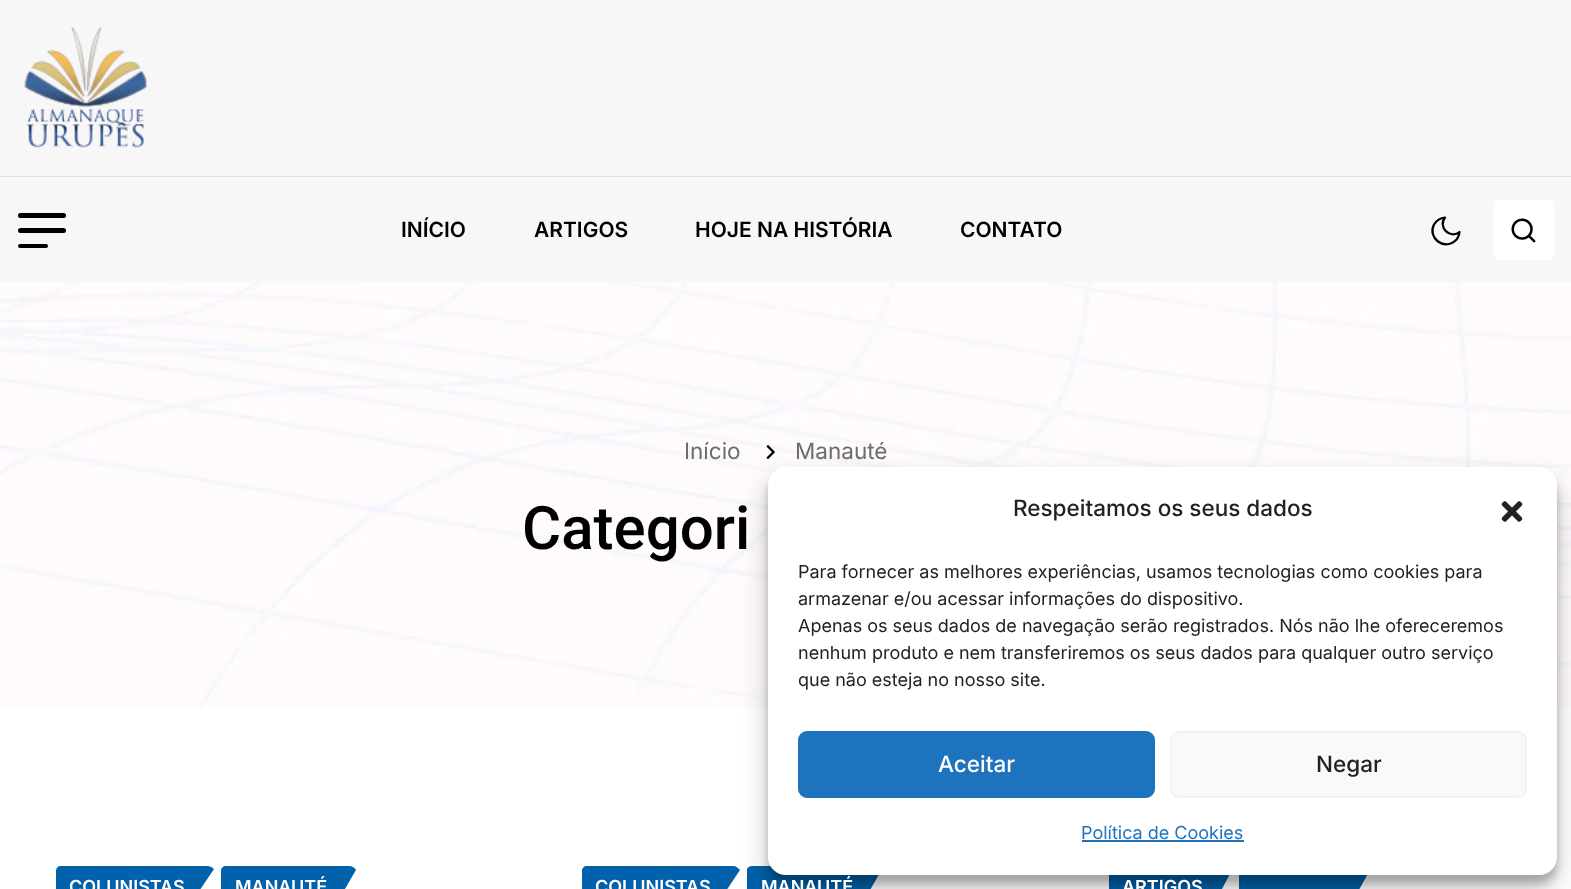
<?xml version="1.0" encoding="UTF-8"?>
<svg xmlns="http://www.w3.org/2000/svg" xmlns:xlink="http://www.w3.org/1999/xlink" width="1571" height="889">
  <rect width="100%" height="100%" fill="#ffffff" />
  <rect width="1571" height="176" fill="#f8f7f7" />
  <rect y="176" width="1571" height="1" fill="#dedede" />
  <image x="24" y="27" width="123" height="121" xlink:href="image1.png" />
  <rect y="177" width="1571" height="105" fill="#f8f7f7" />
  <rect x="18" y="213" width="48" height="5" rx="2.5" fill="#000000" />
  <rect x="18" y="228" width="48" height="5" rx="2.5" fill="#000000" />
  <rect x="18" y="244" width="30" height="4" rx="2" fill="#000000" />
  <path d="M 1459.5 232 c -0.5 3.5 -1.5 6.5 -4 8.5 c -11 10.5 -28.5 -2.5 -21.5 -16 c 2.5 -4 6.5 -6.5 11 -7 c -7.5 9.5 5 22 14.5 14.5 z" fill="none" stroke="#000000" stroke-width="2.2" stroke-linecap="round" stroke-linejoin="round" />
  <rect x="1494" y="200" width="60" height="60" rx="5" fill="#ffffff" />
  <image x="1511" y="218" width="25" height="25" xlink:href="image2.png" />
  <image x="0" y="282" width="1571" height="426" xlink:href="image3.png" />
  <image x="766" y="445" width="9" height="14" xlink:href="image4.png" />
  <path d="M 752 866 h 124 c 3 0 5 1 6 3 l -21 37 h -109 c -2 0 -4 -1 -5 -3 v -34 c 1 -2 3 -3 5 -3 z" fill="#0161aa" />
  <path d="M 1114 866 c -3 0 -5 2 -5 5 v 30 c 0 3 2 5 5 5 h 99 l 19 -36 c -2 -3 -4 -4 -7 -4 z" fill="#0161aa" />
  <path d="M 1244 866 c -3 0 -5 2 -5 5 v 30 c 0 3 2 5 5 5 h 106 l 20 -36 c -1 -2 -4 -4 -7 -4 z" fill="#0161aa" />
  <rect x="768" y="476" width="789" height="408" rx="18" fill="#000000" fill-opacity="0.23" filter="blur(4.5px)" />
  <path d="M 587 866 c -3 0 -5 2 -5 5 v 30 c 0 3 2 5 5 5 h 129 l 24 -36 c -2 -2 -4 -4 -7 -4 z" fill="#0161aa" />
  <rect x="768" y="482" width="789" height="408" rx="18" fill="#000000" fill-opacity="0.19" filter="blur(15px)" />
  <rect x="768" y="467" width="789" height="408" rx="18" fill="#ffffff" />
  <image x="1501" y="501" width="22" height="21" xlink:href="image5.png" />
  <rect x="799" y="732" width="355" height="65" rx="8" fill="#1e73be" stroke="#1e73be" stroke-width="2" />
  <rect x="1171" y="732" width="355" height="65" rx="8" fill="#f9f9f9" stroke="#f2f2f2" stroke-width="2" />
  <rect x="1082" y="840" width="162" height="2" fill="#1e73be" />
  <path d="M 61 866 c -3 0 -5 2 -5 5 v 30 c 0 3 2 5 5 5 h 128 l 25 -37 c -2 -2 -4 -3 -7 -3 z" fill="#0161aa" />
  <path d="M 226 866 h 123 c 3 0 5 1 7 4 l -21 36 h -109 c -3 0 -5 -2 -5 -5 v -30 c 0 -3 2 -5 5 -5 z" fill="#0161aa" />
  <text x="401" y="237" style="font-family: Inter; font-size: 21px; font-weight: 600; fill: #000000">INÍCIO</text>
  <text x="534" y="237" style="font-family: Inter; font-size: 21px; font-weight: 600; fill: #000000">ARTIGOS</text>
  <text x="695" y="237" style="font-family: Inter; font-size: 21px; font-weight: 600; fill: #000000">HOJE NA HISTÓRIA</text>
  <text x="960" y="237" style="font-family: Inter; font-size: 21px; font-weight: 600; fill: #000000">CONTATO</text>
  <text x="684" y="459" style="font-family: Inter; font-size: 22.5px; fill: #6c6c6c">Início</text>
  <text x="795" y="459" style="font-family: Inter; font-size: 22.5px; fill: #6c6c6c">Manauté</text>
  <text x="522" y="549" style="font-family: Roboto; font-size: 60px; font-weight: 500; fill: #000000">Categori</text>
  <text x="1013" y="516" style="font-family: Inter; font-size: 22.5px; font-weight: 500; fill: #222222">Respeitamos os seus dados</text>
  <text x="798" y="578" style="font-family: Inter; font-size: 18px; fill: #222222">Para fornecer as melhores experiências, usamos tecnologias como cookies para</text>
  <text x="798" y="605" style="font-family: Inter; font-size: 18px; fill: #222222">armazenar e/ou acessar informações do dispositivo.</text>
  <text x="798" y="632" style="font-family: Inter; font-size: 18px; fill: #222222">Apenas os seus dados de navegação serão registrados. Nós não lhe ofereceremos</text>
  <text x="798" y="659" style="font-family: Inter; font-size: 18px; fill: #222222">nenhum produto e nem transferiremos os seus dados para qualquer outro serviço</text>
  <text x="798" y="686" style="font-family: Inter; font-size: 18px; fill: #222222">que não esteja no nosso site.</text>
  <text x="938" y="772" style="font-family: Inter; font-size: 22.5px; font-weight: 500; fill: #ffffff">Aceitar</text>
  <text x="1316" y="772" style="font-family: Inter; font-size: 22.5px; font-weight: 500; fill: #222222">Negar</text>
  <text x="1081" y="839" style="font-family: Inter; font-size: 18px; fill: #1e73be">Política de Cookies</text>
  <text x="69" y="893" style="font-family: Inter; font-size: 18px; font-weight: 600; fill: #ffffff">COLUNISTAS</text>
  <text x="235" y="893" style="font-family: Inter; font-size: 18px; font-weight: 600; fill: #ffffff">MANAUTÉ</text>
  <text x="595" y="893" style="font-family: Inter; font-size: 18px; font-weight: 600; fill: #ffffff">COLUNISTAS</text>
  <text x="761" y="893" style="font-family: Inter; font-size: 18px; font-weight: 600; fill: #ffffff">MANAUTÉ</text>
  <text x="1122" y="893" style="font-family: Inter; font-size: 18px; font-weight: 600; fill: #ffffff">ARTIGOS</text>
</svg>
